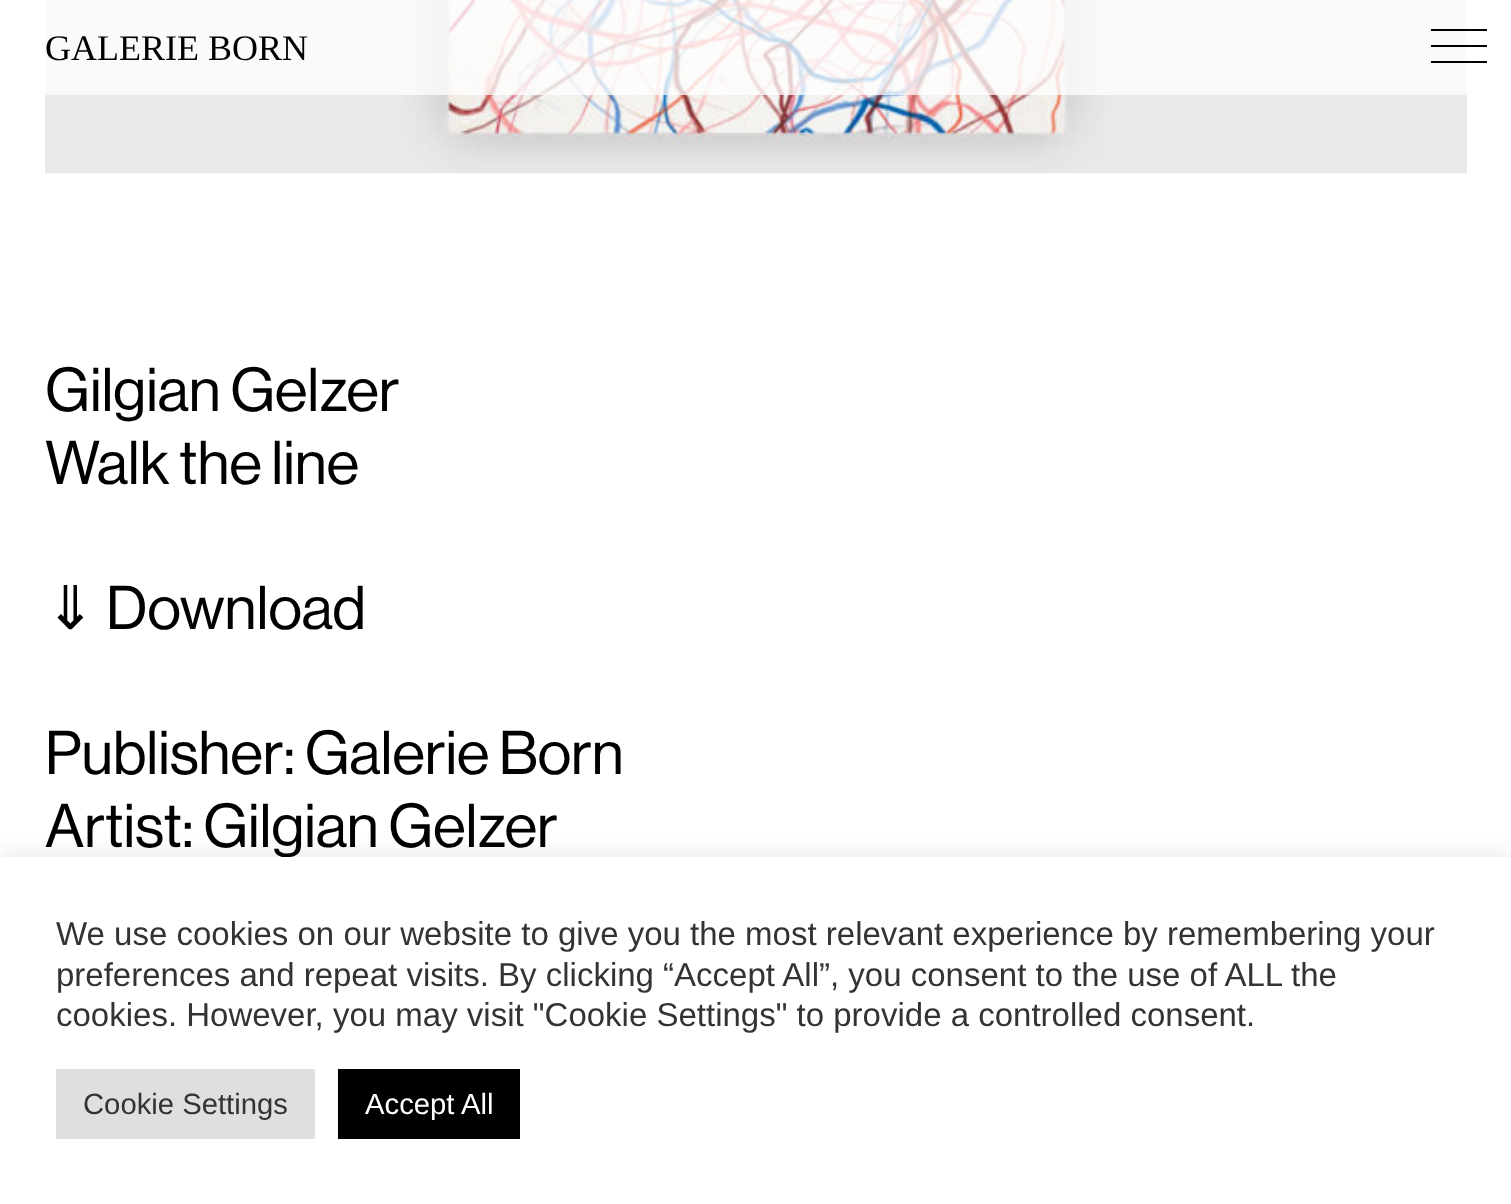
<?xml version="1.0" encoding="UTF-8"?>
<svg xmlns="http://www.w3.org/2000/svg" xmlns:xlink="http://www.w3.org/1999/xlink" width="1511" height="1204">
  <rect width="100%" height="100%" fill="#ffffff" />
  <image x="45" y="0" width="1422" height="174" xlink:href="image1.png" />
  <rect x="45" width="1422" height="95" fill="#ffffff" fill-opacity="0.75" />
  <rect x="1431" y="45" width="56" height="2" fill="#000000" />
  <rect x="1431" y="29" width="56" height="2" fill="#000000" />
  <rect x="1431" y="61" width="56" height="2" fill="#000000" />
  <rect y="855" width="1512" height="349" fill="#acabab" fill-opacity="0.3" filter="blur(11px)" />
  <text x="45" y="60" style="font-family: Liberation Serif; font-size: 36px; fill: #000000">GALERIE BORN</text>
  <text x="45" y="411" style="font-family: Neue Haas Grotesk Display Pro; font-size: 60.5px; fill: #000000">Gilgian Gelzer</text>
  <text x="45" y="484" style="font-family: Neue Haas Grotesk Display Pro; font-size: 60.5px; fill: #000000">Walk the line</text>
  <text x="45" y="629" style="font-family: DejaVu Sans; font-size: 60.5px; fill: #000000">⇓</text>
  <text x="106" y="629" style="font-family: Neue Haas Grotesk Display Pro; font-size: 60.5px; fill: #000000">Download</text>
  <text x="45" y="774" style="font-family: Neue Haas Grotesk Display Pro; font-size: 60.5px; fill: #000000">Publisher: Galerie Born</text>
  <text x="45" y="847" style="font-family: Neue Haas Grotesk Display Pro; font-size: 60.5px; fill: #000000">Artist: Gilgian Gelzer</text>
  <rect y="857" width="1511" height="347" fill="#ffffff" />
  <text x="56" y="945" style="font-family: Liberation Sans; font-size: 33px; fill: #333333">We use cookies on our website to give you the most relevant experience by remembering your</text>
  <text x="56" y="986" style="font-family: Liberation Sans; font-size: 33px; fill: #333333">preferences and repeat visits. By clicking “Accept All”, you consent to the use of ALL the</text>
  <text x="56" y="1026" style="font-family: Liberation Sans; font-size: 33px; fill: #333333">cookies. However, you may visit "Cookie Settings" to provide a controlled consent.</text>
  <rect x="56" y="1069" width="259" height="70" fill="#dedfe0" />
  <text x="83" y="1114" style="font-family: Liberation Sans; font-size: 29.25px; fill: #333333">Cookie Settings</text>
  <rect x="338" y="1069" width="182" height="70" fill="#000000" />
  <text x="365" y="1114" style="font-family: Liberation Sans; font-size: 29.25px; fill: #ffffff">Accept All</text>
</svg>
